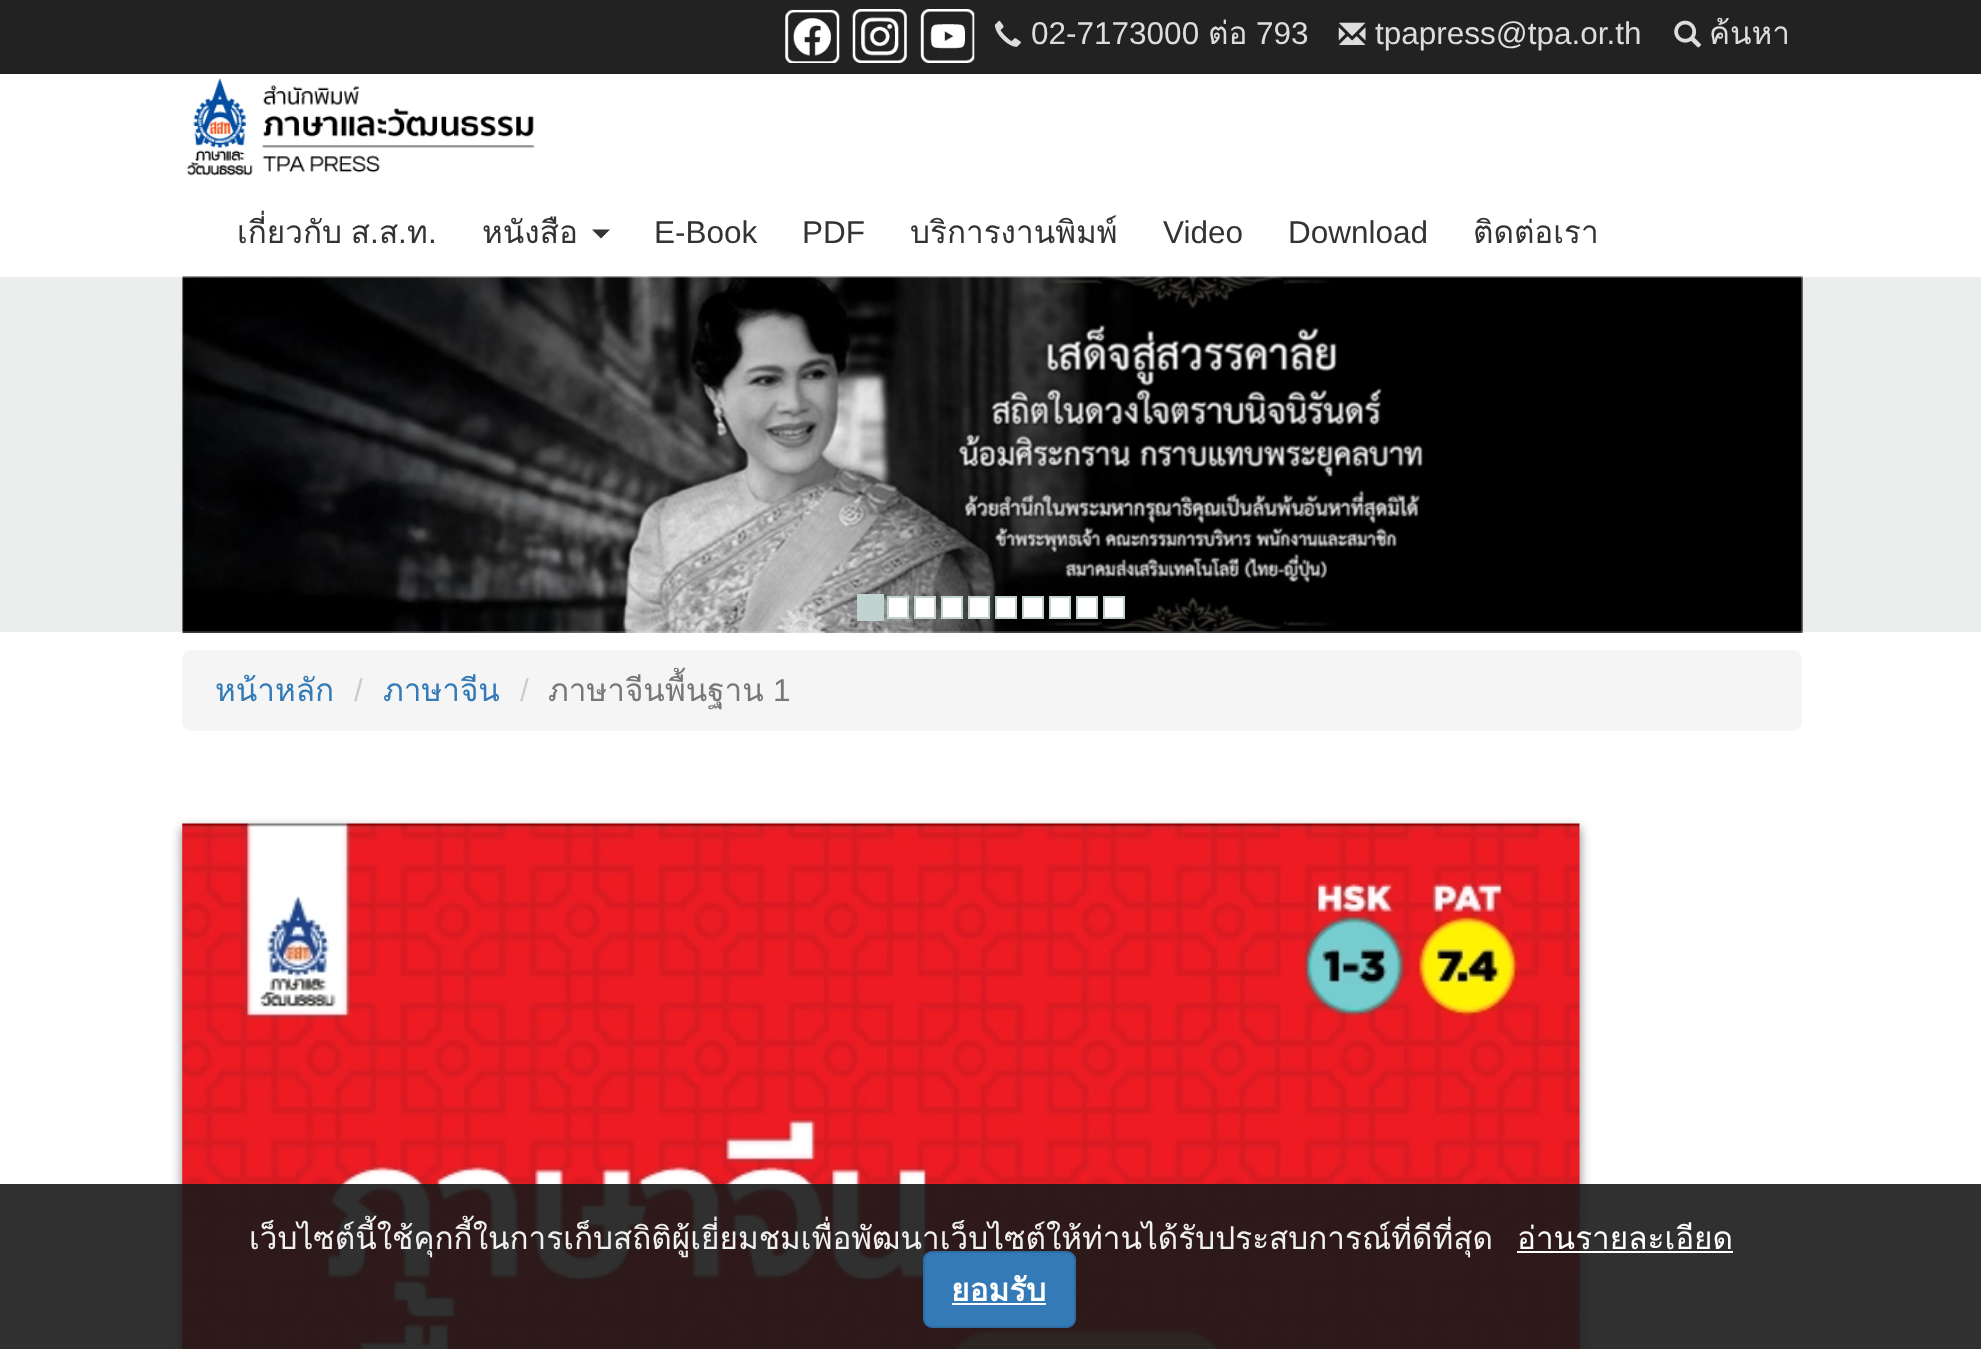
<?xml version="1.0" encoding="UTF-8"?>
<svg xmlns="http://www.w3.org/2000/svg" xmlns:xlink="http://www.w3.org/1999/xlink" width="1981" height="1349">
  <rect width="100%" height="100%" fill="#ffffff" />
  <rect width="1981" height="74" fill="#222222" />
  <image x="785" y="9" width="55" height="54" xlink:href="image1.png" />
  <image x="852" y="9" width="55" height="54" xlink:href="image2.png" />
  <image x="920" y="9" width="55" height="54" xlink:href="image3.png" />
  <image x="994" y="20" width="27" height="27" xlink:href="image4.png" />
  <image x="1338" y="22" width="28" height="23" xlink:href="image5.png" />
  <image x="186" y="77" width="349" height="99" xlink:href="image7.png" />
  <path d="M 592 229.5 h 18 l -9 9 z" fill="#333333" />
  <rect y="277" width="1981" height="355" fill="#eaeeec" />
  <image x="182" y="276" width="1621" height="357" xlink:href="image8.png" />
  <rect x="857" y="594" width="27" height="27" fill="#c0d3d1" />
  <rect x="888" y="597" width="20" height="21" fill="#ffffff" stroke="#c0d3d1" stroke-width="2" />
  <rect x="915" y="597" width="20" height="21" fill="#ffffff" stroke="#c0d3d1" stroke-width="2" />
  <rect x="942" y="597" width="20" height="21" fill="#ffffff" stroke="#c0d3d1" stroke-width="2" />
  <rect x="969" y="597" width="20" height="21" fill="#ffffff" stroke="#c0d3d1" stroke-width="2" />
  <rect x="996" y="597" width="20" height="21" fill="#ffffff" stroke="#c0d3d1" stroke-width="2" />
  <rect x="1023" y="597" width="20" height="21" fill="#ffffff" stroke="#c0d3d1" stroke-width="2" />
  <rect x="1050" y="597" width="20" height="21" fill="#ffffff" stroke="#c0d3d1" stroke-width="2" />
  <rect x="1077" y="597" width="20" height="21" fill="#ffffff" stroke="#c0d3d1" stroke-width="2" />
  <rect x="1104" y="597" width="20" height="21" fill="#ffffff" stroke="#c0d3d1" stroke-width="2" />
  <rect x="182" y="650" width="1620" height="81" rx="9" fill="#f5f5f5" />
  <rect x="182" y="828" width="1398" height="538" fill="#888888" filter="blur(5.5px)" />
  <image x="182" y="823" width="1398" height="526" xlink:href="image9.png" />
  <rect y="1184" width="1981" height="165" fill="#191919" fill-opacity="0.9" />
  <rect x="1517" y="1251" width="216" height="2" fill="#ffffff" />
  <text x="1031" y="44" style="font-family: Liberation Sans; font-size: 31.5px; fill: #dddddd">02-7173000</text>
  <text x="1208" y="44" style="font-family: Loma; font-size: 31.5px; fill: #dddddd">ต่อ</text>
  <text x="1256" y="44" style="font-family: Liberation Sans; font-size: 31.5px; fill: #dddddd">793</text>
  <text x="1375" y="44" style="font-family: Liberation Sans; font-size: 31.5px; fill: #dddddd">tpapress@tpa.or.th</text>
  <text x="1709" y="44" style="font-family: Loma; font-size: 31.5px; fill: #dddddd">ค้นหา</text>
  <image x="1674" y="20" width="27" height="28" xlink:href="image6.png" />
  <text x="237" y="243" word-spacing="-2" style="font-family: Loma; font-size: 31.5px; fill: #333333">เกี่ยวกับ ส</text>
  <text x="370" y="243" style="font-family: Liberation Sans; font-size: 31.5px; fill: #333333">.</text>
  <text x="379" y="243" style="font-family: Loma; font-size: 31.5px; fill: #333333">ส</text>
  <text x="398" y="243" style="font-family: Liberation Sans; font-size: 31.5px; fill: #333333">.</text>
  <text x="407" y="243" style="font-family: Loma; font-size: 31.5px; fill: #333333">ท</text>
  <text x="428" y="243" style="font-family: Liberation Sans; font-size: 31.5px; fill: #333333">.</text>
  <text x="482" y="243" style="font-family: Loma; font-size: 31.5px; fill: #333333">หนังสือ</text>
  <text x="654" y="243" style="font-family: Liberation Sans; font-size: 31.5px; fill: #333333">E-Book</text>
  <text x="802" y="243" style="font-family: Liberation Sans; font-size: 31.5px; fill: #333333">PDF</text>
  <text x="910" y="243" style="font-family: Loma; font-size: 31.5px; fill: #333333">บริการงานพิมพ์</text>
  <text x="1163" y="243" style="font-family: Liberation Sans; font-size: 31.5px; fill: #333333">Video</text>
  <text x="1288" y="243" style="font-family: Liberation Sans; font-size: 31.5px; fill: #333333">Download</text>
  <text x="1473" y="243" style="font-family: Loma; font-size: 31.5px; fill: #333333">ติดต่อเรา</text>
  <text x="215" y="701" style="font-family: Loma; font-size: 31.5px; fill: #337ab7">หน้าหลัก</text>
  <text x="354" y="701" style="font-family: Liberation Sans; font-size: 31.5px; fill: #cccccc">/</text>
  <text x="383" y="701" style="font-family: Loma; font-size: 31.5px; fill: #337ab7">ภาษาจีน</text>
  <text x="520" y="701" style="font-family: Liberation Sans; font-size: 31.5px; fill: #cccccc">/</text>
  <text x="548" y="701" style="font-family: Loma; font-size: 31.5px; fill: #777777">ภาษาจีนพื้นฐาน</text>
  <text x="773" y="701" style="font-family: Liberation Sans; font-size: 31.5px; fill: #777777">1</text>
  <text x="249" y="1249" style="font-family: Loma; font-size: 31.5px; fill: #f0f0f0">เว็บไซต์นี้ใช้คุกกี้ในการเก็บสถิติผู้เยี่ยมชมเพื่อพัฒนาเว็บไซต์ให้ท่านได้รับประสบการณ์ที่ดีที่สุด</text>
  <text x="1517" y="1249" style="font-family: Loma; font-size: 31.5px; fill: #ffffff">อ่านรายละเอียด</text>
  <rect x="924" y="1252" width="151" height="75" rx="8" fill="#337ab7" stroke="#2e6da4" stroke-width="2" />
  <text x="951" y="1301" style="font-family: Loma; font-size: 31.5px; font-weight: bold; fill: #ffffff">ยอมรับ</text>
  <rect x="952" y="1303" width="94" height="2" fill="#ffffff" />
</svg>
